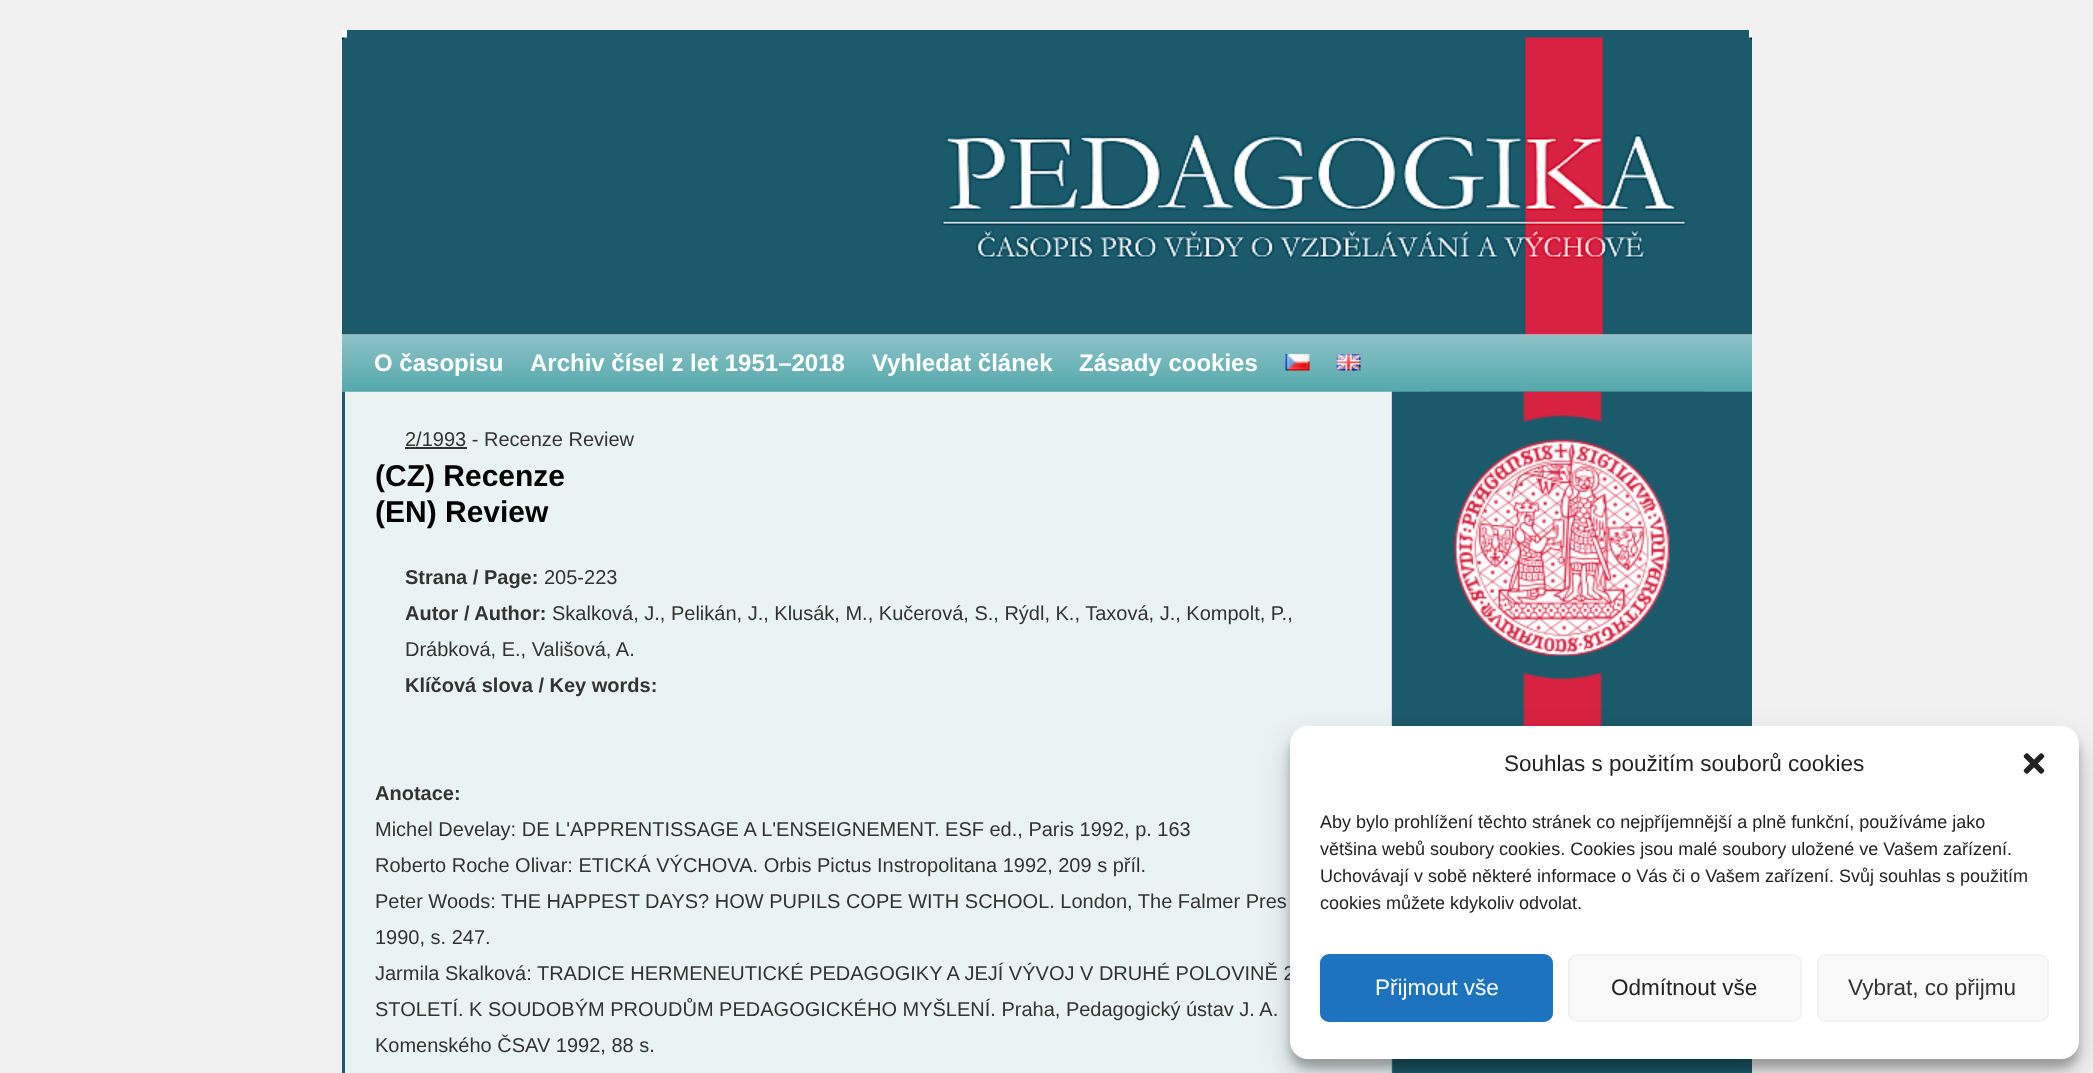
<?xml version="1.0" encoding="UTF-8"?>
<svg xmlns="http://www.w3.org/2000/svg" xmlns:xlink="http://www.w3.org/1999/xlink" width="2093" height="1073">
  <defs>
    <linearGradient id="g1" gradientUnits="userSpaceOnUse" x1="1047" y1="334" x2="1047" y2="392"><stop offset="0" stop-color="#8dc3c9" /><stop offset="1" stop-color="#54a8aa" /></linearGradient>
  </defs>
  <rect width="100%" height="100%" fill="#f1f1f1" />
  <rect x="342" y="30" width="1410" height="305" fill="#ffffff" />
  <rect x="347" y="30" width="1402" height="8" fill="#1b5a6b" />
  <image x="342" y="37" width="1410" height="298" xlink:href="image1.png" />
  <rect x="342" y="335" width="1410" height="57" fill="url(#g1)" />
  <image x="1285" y="354" width="25" height="17" xlink:href="image2.png" />
  <image x="1336" y="354" width="25" height="17" xlink:href="image3.png" />
  <rect x="342" y="392" width="3" height="681" fill="#1b5a6b" />
  <image x="345" y="391" width="1407" height="682" xlink:href="image4.png" />
  <rect x="405" y="447" width="62" height="2" fill="#333333" />
  <rect x="1392" y="392" width="1" height="334" fill="#1b5a6b" />
  <image x="1429" y="391" width="275" height="335" xlink:href="image5.png" />
  <rect x="1290" y="735" width="789" height="333" rx="18" fill="#000000" fill-opacity="0.23" filter="blur(4.5px)" />
  <rect x="1290" y="741" width="789" height="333" rx="18" fill="#000000" fill-opacity="0.19" filter="blur(15px)" />
  <text x="374" y="371" style="font-family: Liberation Sans; font-size: 24px; font-weight: bold; fill: #ffffff">O časopisu</text>
  <text x="530" y="371" style="font-family: Liberation Sans; font-size: 24px; font-weight: bold; fill: #ffffff">Archiv čísel z let 1951–2018</text>
  <text x="872" y="371" style="font-family: Liberation Sans; font-size: 24px; font-weight: bold; fill: #ffffff">Vyhledat článek</text>
  <text x="1079" y="371" style="font-family: Liberation Sans; font-size: 24px; font-weight: bold; fill: #ffffff">Zásady cookies</text>
  <text x="405" y="446" style="font-family: Liberation Sans; font-size: 20px; fill: #333333">2/1993 - Recenze Review</text>
  <text x="375" y="486" style="font-family: Liberation Sans; font-size: 30px; font-weight: bold; fill: #000000">(CZ) Recenze</text>
  <text x="375" y="522" style="font-family: Liberation Sans; font-size: 30px; font-weight: bold; fill: #000000">(EN) Review</text>
  <text x="405" y="584" style="font-family: Liberation Sans; font-size: 20px; font-weight: bold; fill: #333333">Strana / Page:</text>
  <text x="544" y="584" style="font-family: Liberation Sans; font-size: 20px; fill: #333333">205-223</text>
  <text x="405" y="620" style="font-family: Liberation Sans; font-size: 20px; font-weight: bold; fill: #333333">Autor / Author:</text>
  <text x="552" y="620" style="font-family: Liberation Sans; font-size: 20px; fill: #333333">Skalková, J., Pelikán, J., Klusák, M., Kučerová, S., Rýdl, K., Taxová, J., Kompolt, P.,</text>
  <text x="405" y="656" style="font-family: Liberation Sans; font-size: 20px; fill: #333333">Drábková, E., Vališová, A.</text>
  <text x="405" y="692" style="font-family: Liberation Sans; font-size: 20px; font-weight: bold; fill: #333333">Klíčová slova / Key words:</text>
  <text x="375" y="800" style="font-family: Liberation Sans; font-size: 20px; font-weight: bold; fill: #333333">Anotace:</text>
  <text x="375" y="836" style="font-family: Liberation Sans; font-size: 20px; fill: #333333">Michel Develay: DE L'APPRENTISSAGE A L'ENSEIGNEMENT. ESF ed., Paris 1992, p. 163</text>
  <text x="375" y="872" style="font-family: Liberation Sans; font-size: 20px; fill: #333333">Roberto Roche Olivar: ETICKÁ VÝCHOVA. Orbis Pictus Instropolitana 1992, 209 s příl.</text>
  <text x="375" y="908" style="font-family: Liberation Sans; font-size: 20px; fill: #333333">Peter Woods: THE HAPPEST DAYS? HOW PUPILS COPE WITH SCHOOL. London, The Falmer Pres</text>
  <text x="375" y="944" style="font-family: Liberation Sans; font-size: 20px; fill: #333333">1990, s. 247.</text>
  <text x="375" y="980" style="font-family: Liberation Sans; font-size: 20px; fill: #333333">Jarmila Skalková: TRADICE HERMENEUTICKÉ PEDAGOGIKY A JEJÍ VÝVOJ V DRUHÉ POLOVINĚ 2</text>
  <text x="375" y="1016" style="font-family: Liberation Sans; font-size: 20px; fill: #333333">STOLETÍ. K SOUDOBÝM PROUDŮM PEDAGOGICKÉHO MYŠLENÍ. Praha, Pedagogický ústav J. A.</text>
  <text x="375" y="1052" style="font-family: Liberation Sans; font-size: 20px; fill: #333333">Komenského ČSAV 1992, 88 s.</text>
  <rect x="1290" y="726" width="789" height="333" rx="18" fill="#ffffff" />
  <text x="1504" y="771" style="font-family: Liberation Sans; font-size: 22.5px; fill: #222222">Souhlas s použitím souborů cookies</text>
  <image x="2023" y="753" width="22" height="21" xlink:href="image6.png" />
  <text x="1320" y="828" style="font-family: Liberation Sans; font-size: 18px; fill: #222222">Aby bylo prohlížení těchto stránek co nejpříjemnější a plně funkční, používáme jako</text>
  <text x="1320" y="855" style="font-family: Liberation Sans; font-size: 18px; fill: #222222">většina webů soubory cookies. Cookies jsou malé soubory uložené ve Vašem zařízení.</text>
  <text x="1320" y="882" style="font-family: Liberation Sans; font-size: 18px; fill: #222222">Uchovávají v sobě některé informace o Vás či o Vašem zařízení. Svůj souhlas s použitím</text>
  <text x="1320" y="909" style="font-family: Liberation Sans; font-size: 18px; fill: #222222">cookies můžete kdykoliv odvolat.</text>
  <rect x="1321" y="955" width="231" height="66" rx="8" fill="#1e73be" stroke="#1e73be" stroke-width="2" />
  <text x="1375" y="995" style="font-family: Liberation Sans; font-size: 22.5px; fill: #ffffff">Přijmout vše</text>
  <rect x="1569" y="955" width="232" height="66" rx="8" fill="#f9f9f9" stroke="#f2f2f2" stroke-width="2" />
  <text x="1611" y="995" style="font-family: Liberation Sans; font-size: 22.5px; fill: #222222">Odmítnout vše</text>
  <rect x="1818" y="955" width="230" height="66" rx="8" fill="#f9f9f9" stroke="#f2f2f2" stroke-width="2" />
  <text x="1848" y="995" style="font-family: Liberation Sans; font-size: 22.5px; fill: #333333">Vybrat, co přijmu</text>
</svg>
